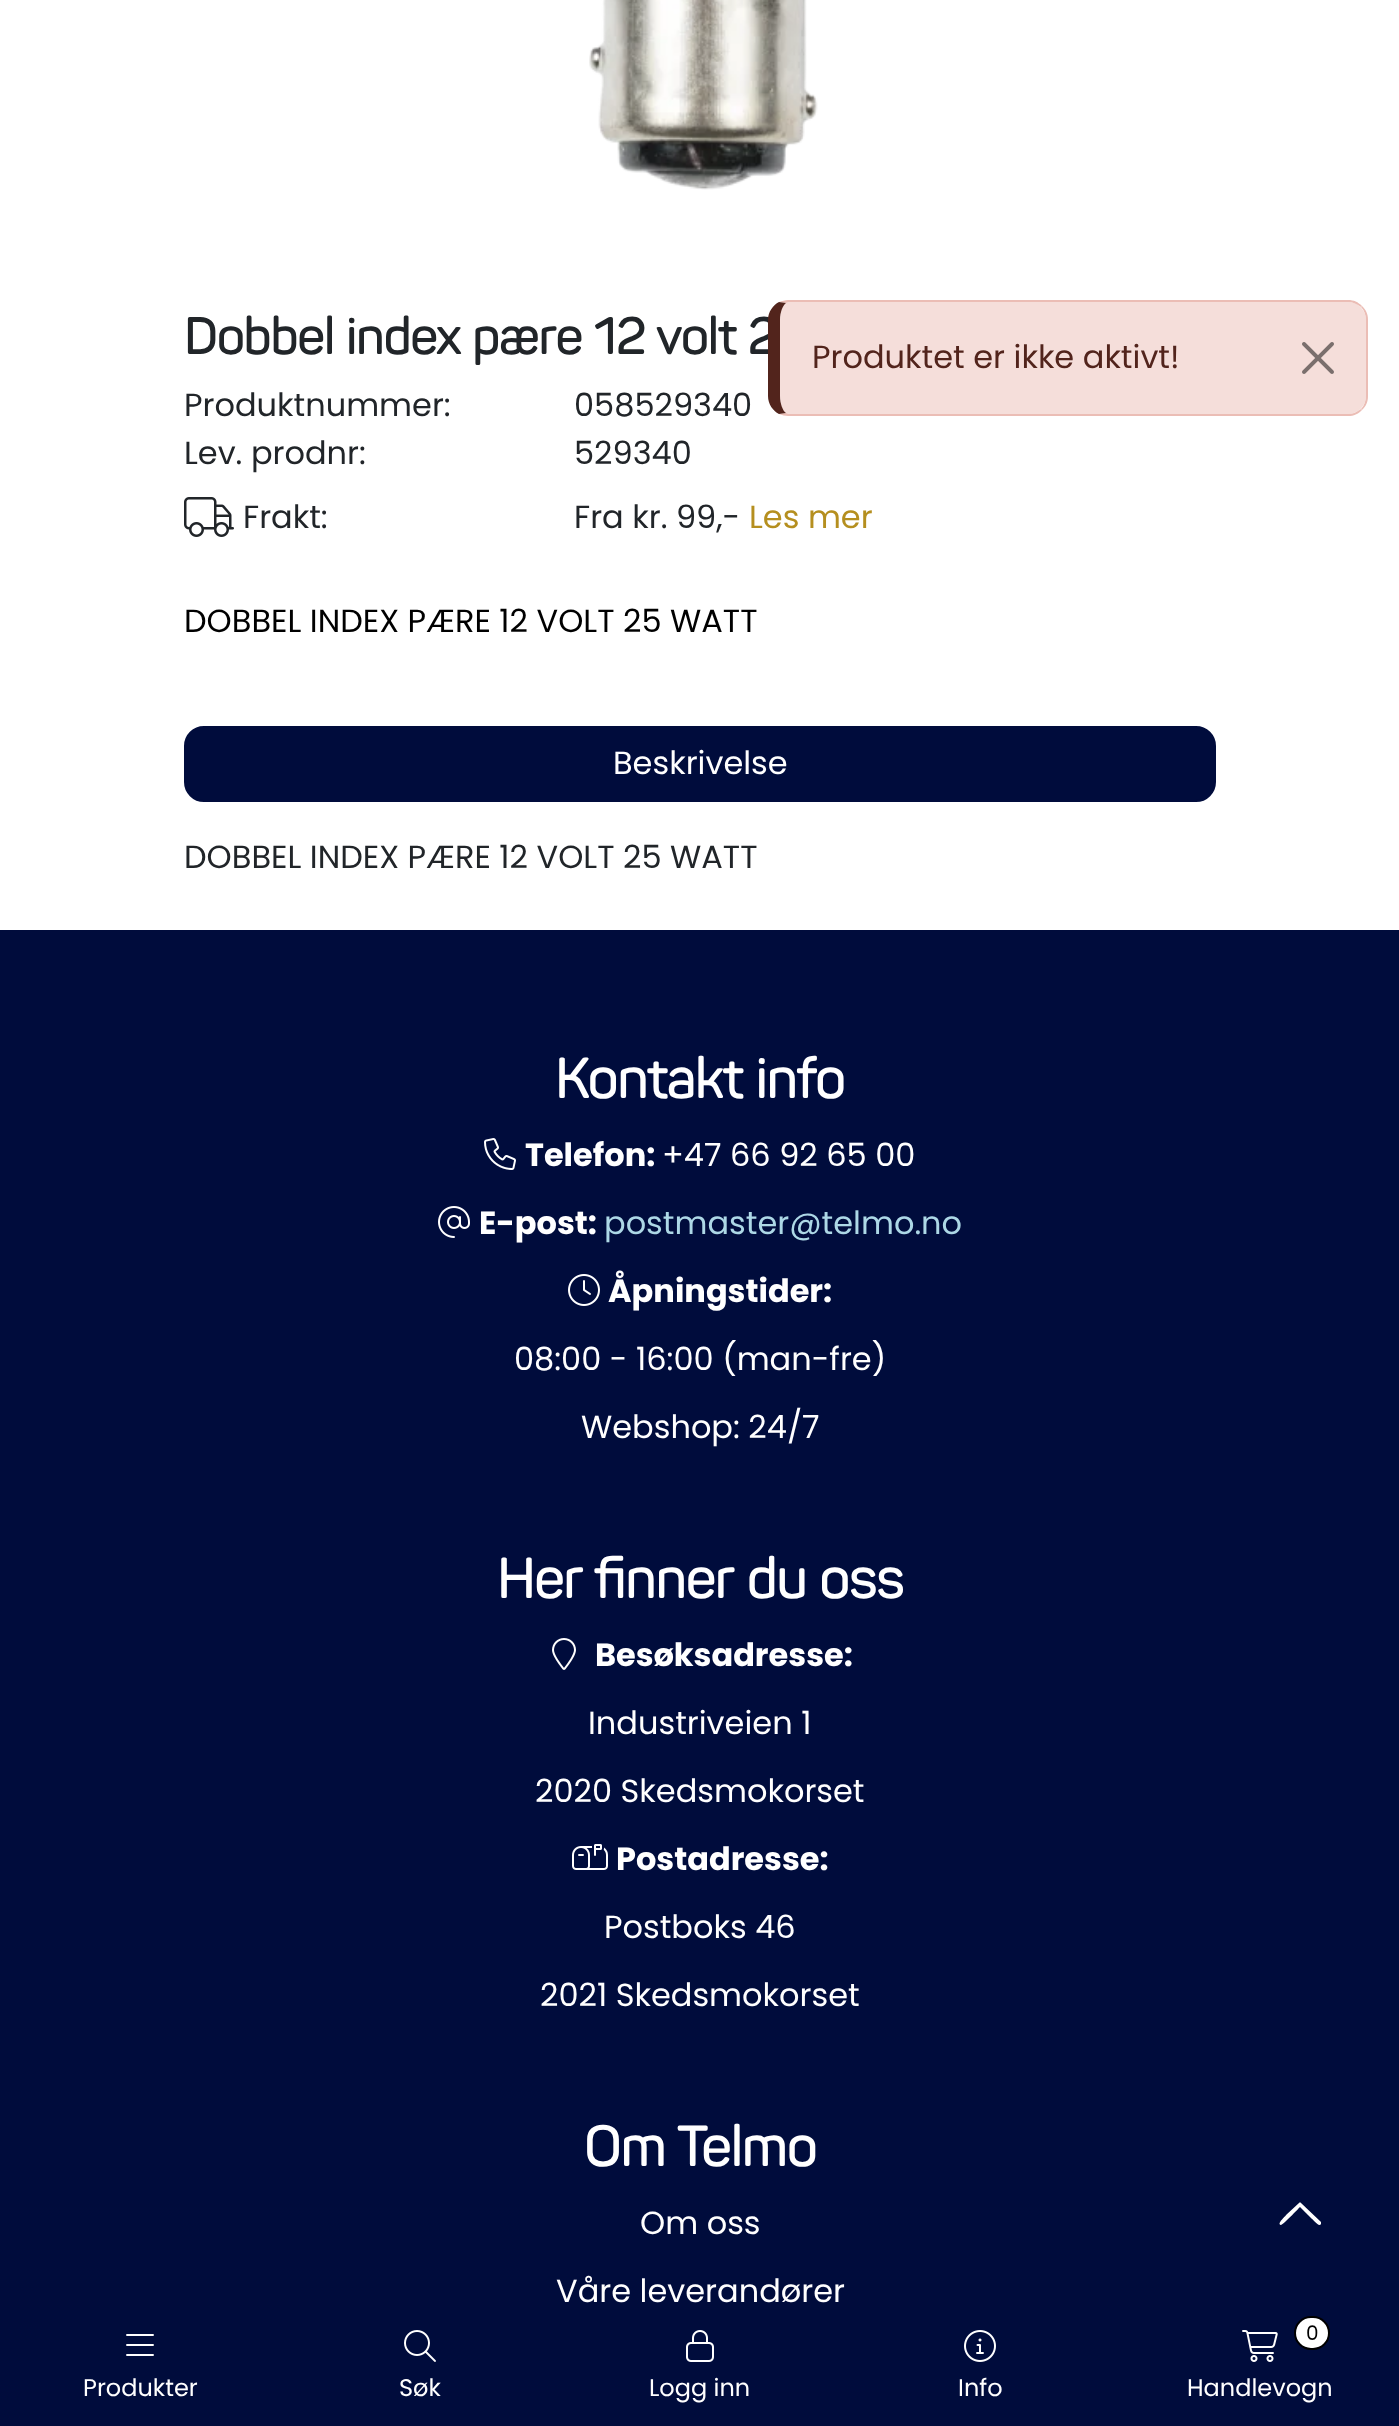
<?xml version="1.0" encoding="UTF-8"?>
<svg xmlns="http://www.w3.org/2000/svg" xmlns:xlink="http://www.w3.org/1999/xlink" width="1399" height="2426">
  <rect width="100%" height="100%" fill="#ffffff" />
  <image x="589" y="0" width="229" height="190" xlink:href="image1.png" />
  <image x="184" y="497" width="50" height="40" xlink:href="image2.png" />
  <rect x="185" y="727" width="1030" height="74" rx="19" fill="#000c3c" stroke="#000c3c" stroke-width="2" />
  <path d="M 788 302 h 560 c 10 0 18 8 18 18 v 76 c 0 10 -8 18 -18 18 h -560 c -4 0 -8 -8 -8 -18 v -76 c 0 -10 4 -18 8 -18 z" fill="#f5deda" />
  <path d="M 788 300 c -3 0 -6 1 -9 2 l 7 1 l 2 -1 h 560 c 5 0 9 2 13 5 l 1 -1 c -4 -4 -8 -6 -14 -6 z" fill="#ebbdb5" />
  <path d="M 1368 396 v -76 c 0 -6 -2 -10 -6 -14 l -1 1 c 3 3 5 8 5 13 v 76 c 0 5 -2 10 -5 13 l 1 1 c 4 -4 6 -8 6 -14 z" fill="#ebbdb5" />
  <path d="M 788 416 h 560 c 6 0 10 -2 14 -6 l -1 -1 c -4 3 -8 5 -13 5 h -560 l -2 -1 l -7 1 c 3 1 6 2 9 2 z" fill="#ebbdb5" />
  <image x="1302" y="342" width="32" height="32" xlink:href="image3.png" />
  <rect y="930" width="1399" height="1496" fill="#000c3c" />
  <path d="M 1299 2203 c 1 -1 1 -1 2 0 l 20 19 v 2 c -2 4 -8 -5 -9 -5 l -12 -12 c -2 2 -17 18 -19 18 c -5 -1 5 -9 5 -10 z" fill="#ffffff" />
  <image x="126" y="2334" width="28" height="22" xlink:href="image4.png" />
  <image x="404" y="2330" width="32" height="32" xlink:href="image5.png" />
  <image x="686" y="2330" width="28" height="32" xlink:href="image6.png" />
  <image x="964" y="2330" width="32" height="32" xlink:href="image7.png" />
  <image x="1242" y="2330" width="36" height="32" xlink:href="image8.png" />
  <rect x="1295" y="2317" width="34" height="32" rx="16" fill="#ffffff" stroke="#000000" stroke-width="2" />
  <image x="484" y="1138" width="32" height="32" xlink:href="image9.png" />
  <image x="438" y="1206" width="32" height="32" xlink:href="image10.png" />
  <image x="568" y="1274" width="32" height="32" xlink:href="image11.png" />
  <image x="552" y="1638" width="24" height="32" xlink:href="image12.png" />
  <image x="572" y="1844" width="36" height="26" xlink:href="image13.png" />
  <text x="184" y="354" style="font-family: 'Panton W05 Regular'; font-size: 50px; font-weight: bold; fill: #212529">Dobbel index pære 12 volt 2</text>
  <text x="184" y="416" style="font-family: Poppins; font-size: 32px; fill: #212529">Produktnummer:</text>
  <text x="574" y="416" style="font-family: Poppins; font-size: 32px; fill: #212529">058529340</text>
  <text x="184" y="464" style="font-family: Poppins; font-size: 32px; fill: #212529">Lev. prodnr:</text>
  <text x="574" y="464" style="font-family: Poppins; font-size: 32px; fill: #212529">529340</text>
  <text x="243" y="528" style="font-family: Poppins; font-size: 32px; fill: #212529">Frakt:</text>
  <text x="574" y="528" style="font-family: Poppins; font-size: 32px; fill: #212529">Fra kr. 99,-</text>
  <text x="749" y="528" style="font-family: Poppins; font-size: 32px; fill: #b58f1f">Les mer</text>
  <text x="184" y="632" style="font-family: Poppins; font-size: 32px; fill: #000000">DOBBEL INDEX PÆRE 12 VOLT 25 WATT</text>
  <text x="613" y="774" style="font-family: Poppins; font-size: 32px; fill: #ffffff">Beskrivelse</text>
  <text x="184" y="868" style="font-family: Poppins; font-size: 32px; fill: #212529">DOBBEL INDEX PÆRE 12 VOLT 25 WATT</text>
  <path d="M 768 320 v 76 c 0 8 5 15 11 18 l 7 -1 c -3 -2 -6 -9 -6 -17 v -76 c 0 -8 3 -15 6 -17 l -7 -1 c -6 3 -11 10 -11 18 z" fill="#52241c" />
  <text x="812" y="368" style="font-family: Poppins; font-size: 32px; fill: #52241c">Produktet er ikke aktivt!</text>
  <text x="83" y="2396" style="font-family: Poppins; font-size: 24px; fill: #ffffff">Produkter</text>
  <text x="399" y="2396" style="font-family: Poppins; font-size: 24px; fill: #ffffff">Søk</text>
  <text x="649" y="2396" style="font-family: Poppins; font-size: 24px; fill: #ffffff">Logg inn</text>
  <text x="958" y="2396" style="font-family: Poppins; font-size: 24px; fill: #ffffff">Info</text>
  <text x="1306" y="2340" style="font-family: Poppins; font-size: 20px; fill: #000000">0</text>
  <text x="1187" y="2396" style="font-family: Poppins; font-size: 24px; fill: #ffffff">Handlevogn</text>
  <text x="555" y="1098" style="font-family: 'Panton W05 Regular'; font-size: 55px; font-weight: bold; fill: #ffffff">Kontakt info</text>
  <text x="525" y="1166" style="font-family: Poppins; font-size: 32px; font-weight: bold; fill: #ffffff">Telefon:</text>
  <text x="662" y="1166" style="font-family: Poppins; font-size: 32px; fill: #ffffff">+47 66 92 65 00</text>
  <text x="479" y="1234" style="font-family: Poppins; font-size: 32px; font-weight: bold; fill: #ffffff">E-post:</text>
  <text x="604" y="1234" style="font-family: Poppins; font-size: 32px; fill: #add8e6">postmaster@telmo.no</text>
  <text x="608" y="1302" style="font-family: Poppins; font-size: 32px; font-weight: bold; fill: #ffffff">Åpningstider:</text>
  <text x="514" y="1370" style="font-family: Poppins; font-size: 32px; fill: #ffffff">08:00 - 16:00 (man-fre)</text>
  <text x="581" y="1438" style="font-family: Poppins; font-size: 32px; fill: #ffffff">Webshop: 24/7</text>
  <text x="497" y="1598" style="font-family: 'Panton W05 Regular'; font-size: 55px; font-weight: bold; fill: #ffffff">Her finner du oss</text>
  <text x="595" y="1666" style="font-family: Poppins; font-size: 32px; font-weight: bold; fill: #ffffff">Besøksadresse:</text>
  <text x="588" y="1734" style="font-family: Poppins; font-size: 32px; fill: #ffffff">Industriveien 1</text>
  <text x="535" y="1802" style="font-family: Poppins; font-size: 32px; fill: #ffffff">2020 Skedsmokorset</text>
  <text x="616" y="1870" style="font-family: Poppins; font-size: 32px; font-weight: bold; fill: #ffffff">Postadresse:</text>
  <text x="604" y="1938" style="font-family: Poppins; font-size: 32px; fill: #ffffff">Postboks 46</text>
  <text x="540" y="2006" style="font-family: Poppins; font-size: 32px; fill: #ffffff">2021 Skedsmokorset</text>
  <text x="584" y="2166" style="font-family: 'Panton W05 Regular'; font-size: 55px; font-weight: bold; fill: #ffffff">Om Telmo</text>
  <text x="640" y="2234" style="font-family: Poppins; font-size: 32px; fill: #ffffff">Om oss</text>
  <text x="556" y="2302" style="font-family: Poppins; font-size: 32px; fill: #ffffff">Våre leverandører</text>
</svg>
